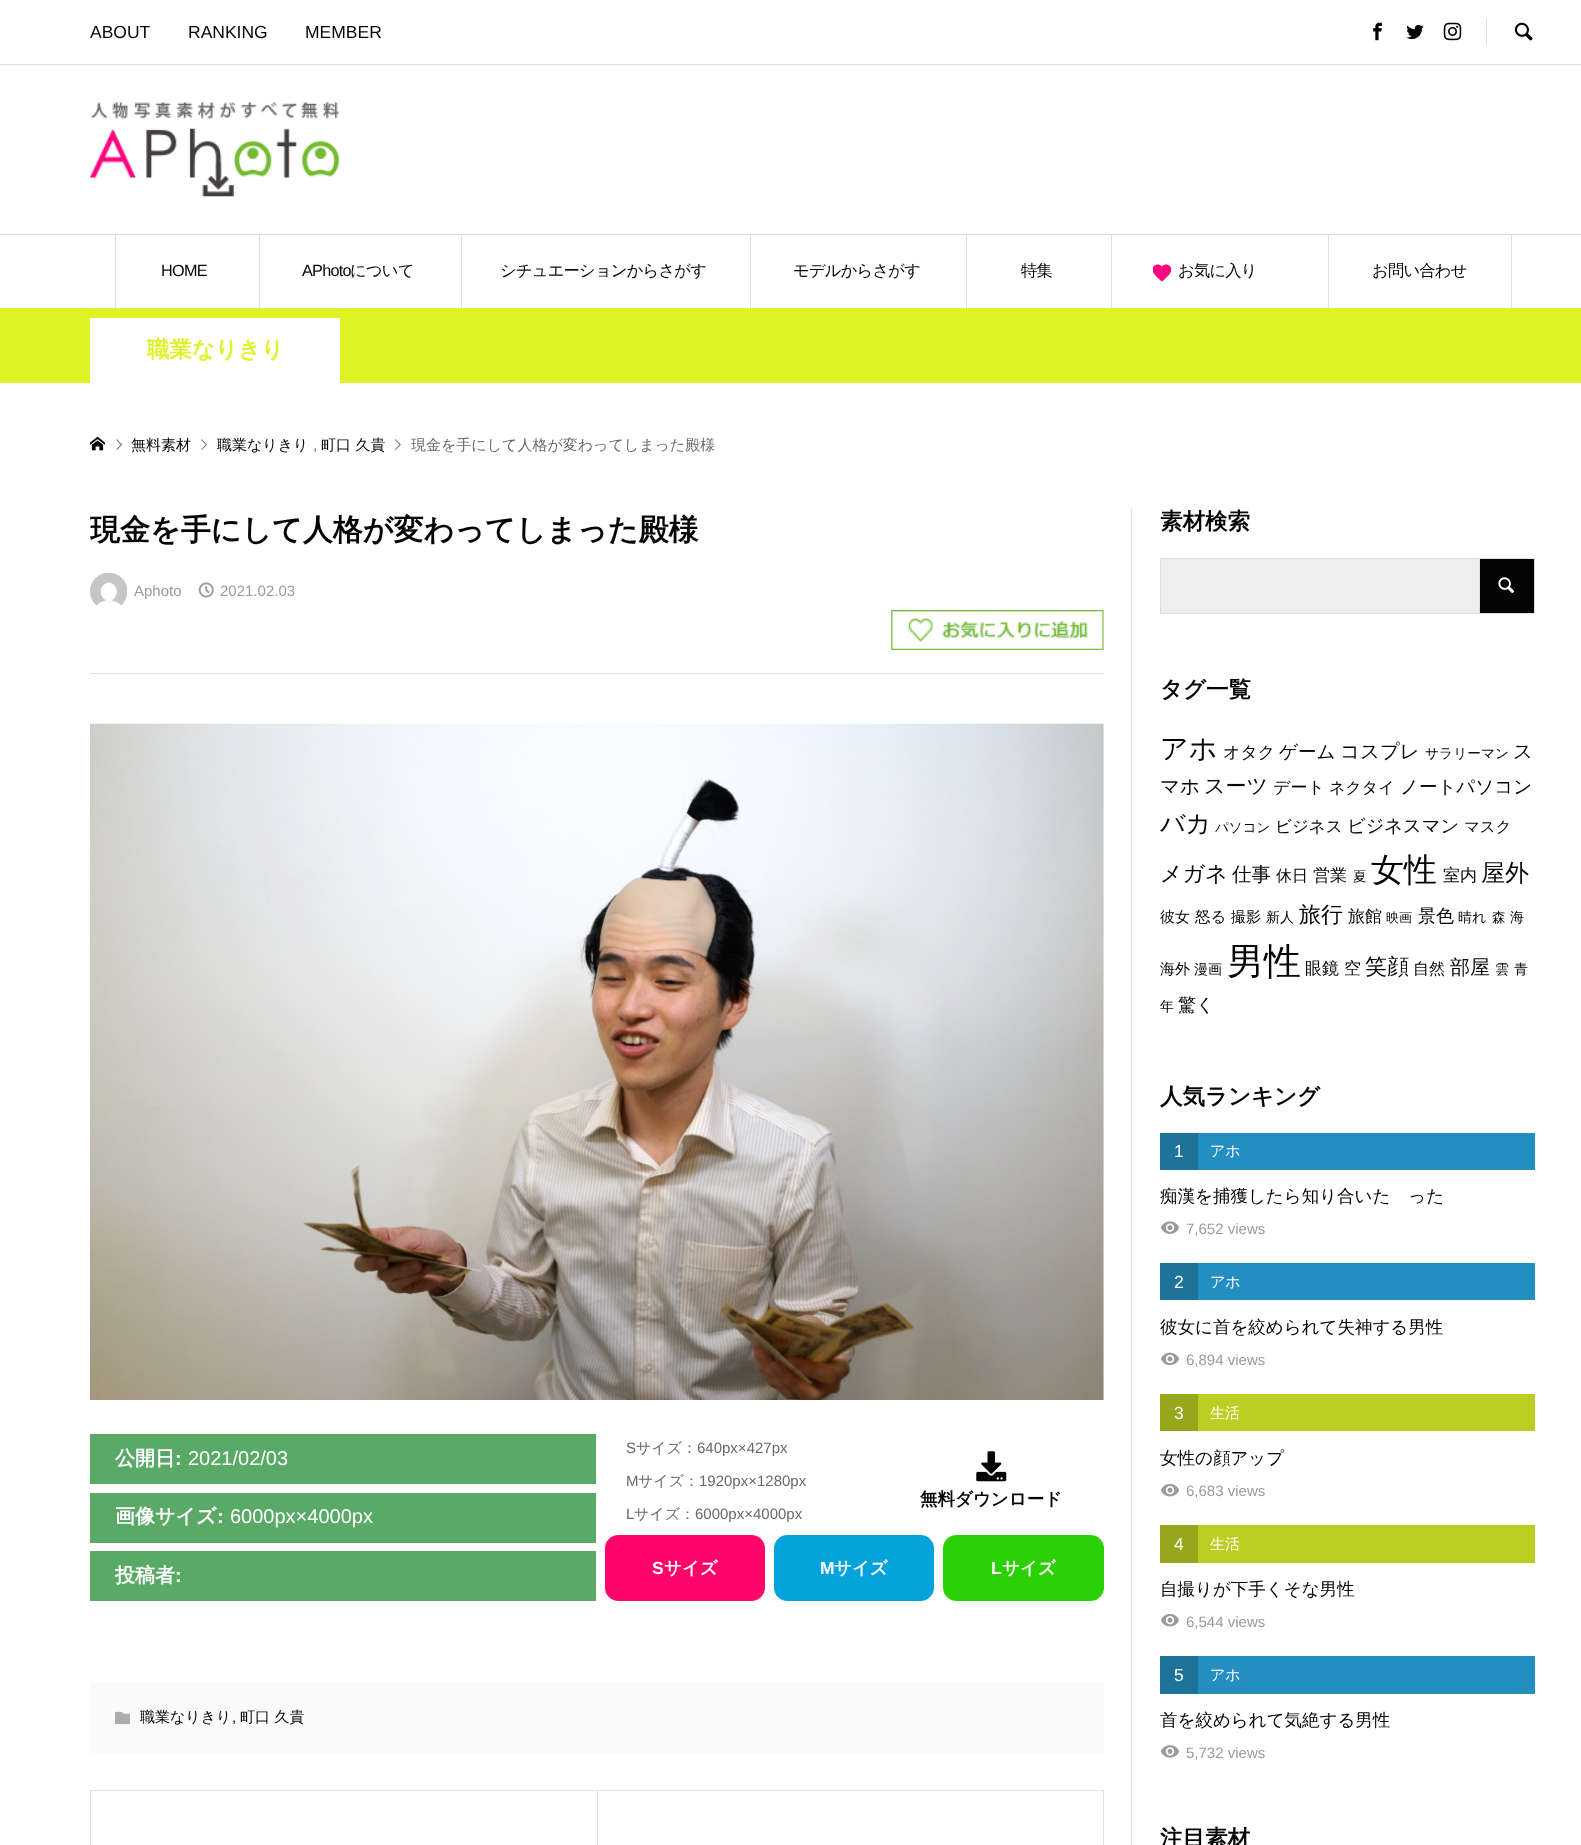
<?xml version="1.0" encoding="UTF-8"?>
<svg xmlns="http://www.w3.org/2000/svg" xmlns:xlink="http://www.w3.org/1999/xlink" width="1581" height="1845">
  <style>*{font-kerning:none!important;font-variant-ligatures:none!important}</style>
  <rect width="100%" height="100%" fill="#ffffff" />
  <rect y="64" width="1581" height="1" fill="#dedede" />
  <image x="1373" y="22" width="9" height="19" xlink:href="image1.png" />
  <image x="1406" y="24" width="18" height="16" xlink:href="image2.png" />
  <image x="1443" y="22" width="19" height="19" xlink:href="image3.png" />
  <rect x="1486" y="18" width="1" height="27" fill="#dedede" />
  <image x="1514" y="22" width="19" height="19" xlink:href="image4.png" />
  <image x="90" y="102" width="249" height="95" xlink:href="image5.png" />
  <rect y="234" width="1581" height="1" fill="#dedede" />
  <rect x="115" y="235" width="1" height="73" fill="#dedede" />
  <rect x="259" y="235" width="1" height="73" fill="#dedede" />
  <rect x="461" y="235" width="1" height="73" fill="#dedede" />
  <rect x="750" y="235" width="1" height="73" fill="#dedede" />
  <rect x="966" y="235" width="1" height="73" fill="#dedede" />
  <rect x="1111" y="235" width="1" height="73" fill="#dedede" />
  <image x="1153" y="264" width="18" height="18" xlink:href="image6.png" />
  <rect x="1328" y="235" width="1" height="73" fill="#dedede" />
  <rect x="1511" y="235" width="1" height="73" fill="#dedede" />
  <rect y="308" width="1581" height="75" fill="#def225" />
  <rect x="90" y="318" width="250" height="65" fill="#ffffff" />
  <image x="90" y="436" width="15" height="15" xlink:href="image7.png" />
  <image x="116" y="439" width="6" height="11" xlink:href="image8.png" />
  <image x="201" y="439" width="6" height="11" xlink:href="image8.png" />
  <image x="395" y="439" width="6" height="11" xlink:href="image9.png" />
  <rect x="90" y="673" width="1014" height="1" fill="#dedede" />
  <image x="90" y="573" width="37" height="33" xlink:href="image10.png" />
  <image x="198" y="582" width="16" height="16" xlink:href="image11.png" />
  <image x="891" y="610" width="213" height="40" xlink:href="image12.png" />
  <image x="90" y="723" width="1014" height="677" xlink:href="image13.png" />
  <rect x="90" y="1434" width="506" height="50" fill="#59a967" />
  <rect x="90" y="1493" width="506" height="50" fill="#59a967" />
  <rect x="90" y="1551" width="506" height="50" fill="#59a967" />
  <image x="976" y="1451" width="31" height="31" xlink:href="image14.png" />
  <rect x="605.5" y="1535.5" width="159" height="65" rx="12.5" fill="#ff0569" stroke="#ff0569" />
  <rect x="774.5" y="1535.5" width="159" height="65" rx="12.5" fill="#05a3db" stroke="#05a3db" />
  <rect x="943.5" y="1535.5" width="160" height="65" rx="12.5" fill="#2cd105" stroke="#2cd105" />
  <rect x="90" y="1683" width="1014" height="70" fill="#fafafa" />
  <image x="115" y="1711" width="15" height="14" xlink:href="image15.png" />
  <rect x="90.5" y="1790.5" width="507" height="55" fill="none" stroke="#dedede" />
  <rect x="598" y="1790" width="506" height="1" fill="#dedede" />
  <rect x="1103" y="1790" width="1" height="55" fill="#dedede" />
  <rect x="1131" y="508" width="1" height="1337" fill="#dedede" />
  <rect x="1161" y="559" width="318" height="54" fill="#eeeeee" />
  <rect x="1160" y="558" width="319" height="1" fill="#dedede" />
  <rect x="1160" y="613" width="319" height="1" fill="#dedede" />
  <rect x="1160" y="558" width="1" height="56" fill="#dedede" />
  <rect x="1480" y="559" width="54" height="54" fill="#050505" />
  <image x="1498" y="577" width="17" height="17" xlink:href="image16.png" />
  <rect x="1479.5" y="558.5" width="55" height="55" fill="none" stroke="#dedede" />
  <rect x="1160" y="1133" width="38" height="37" fill="#1d739a" />
  <rect x="1198" y="1133" width="337" height="37" fill="#238ebf" />
  <image x="1160" y="1221" width="20" height="13" xlink:href="image17.png" />
  <rect x="1160" y="1263" width="38" height="37" fill="#1d739a" />
  <rect x="1198" y="1263" width="337" height="37" fill="#238ebf" />
  <image x="1161" y="1352" width="18" height="14" xlink:href="image18.png" />
  <rect x="1160" y="1394" width="38" height="37" fill="#96a71b" />
  <rect x="1198" y="1394" width="337" height="37" fill="#bacf21" />
  <image x="1160" y="1484" width="20" height="13" xlink:href="image19.png" />
  <rect x="1160" y="1525" width="38" height="38" fill="#96a71b" />
  <rect x="1198" y="1525" width="337" height="38" fill="#bacf21" />
  <image x="1160" y="1614" width="20" height="13" xlink:href="image19.png" />
  <rect x="1160" y="1656" width="38" height="38" fill="#1d739a" />
  <rect x="1198" y="1656" width="337" height="38" fill="#238ebf" />
  <image x="1160" y="1745" width="20" height="13" xlink:href="image20.png" />
  <text x="90" y="38" style="font-family: Liberation Sans; font-size: 17.5px; fill: #050505">ABOUT</text>
  <text x="188" y="38" style="font-family: Liberation Sans; font-size: 17.5px; fill: #050505">RANKING</text>
  <text x="305" y="38" style="font-family: Liberation Sans; font-size: 17.5px; fill: #050505">MEMBER</text>
  <text x="161" y="276" style="font-family: Liberation Sans; font-size: 16.25px; letter-spacing: -0.75px; fill: #050505">HOME</text>
  <text x="302" y="276" style="font-family: Liberation Sans; font-size: 16.25px; letter-spacing: -0.75px; fill: #050505">APhoto</text>
  <text x="350" y="276" style="font-family: WenQuanYi Zen Hei; font-size: 16.25px; font-weight: 500; letter-spacing: -0.75px; fill: #050505">について</text>
  <text x="500" y="276" style="font-family: WenQuanYi Zen Hei; font-size: 16.25px; font-weight: 500; letter-spacing: -0.75px; fill: #050505">シチュエーションからさがす</text>
  <text x="793" y="276" style="font-family: WenQuanYi Zen Hei; font-size: 16.25px; font-weight: 500; letter-spacing: -0.75px; fill: #050505">モデルからさがす</text>
  <text x="1021" y="276" style="font-family: WenQuanYi Zen Hei; font-size: 16.25px; font-weight: 500; letter-spacing: -0.75px; fill: #050505">特集</text>
  <text x="1178" y="276" style="font-family: WenQuanYi Zen Hei; font-size: 16.25px; font-weight: 500; letter-spacing: -0.75px; fill: #050505">お気に入り</text>
  <text x="1372" y="276" style="font-family: WenQuanYi Zen Hei; font-size: 16.25px; font-weight: 500; letter-spacing: -0.75px; fill: #050505">お問い合わせ</text>
  <text x="147" y="357" style="font-family: WenQuanYi Zen Hei; font-size: 22.5px; font-weight: bold; fill: #def225">職業なりきり</text>
  <text x="131" y="450" style="font-family: WenQuanYi Zen Hei; font-size: 15px; font-weight: 500; fill: #050505">無料素材</text>
  <text x="217" y="450" style="font-family: WenQuanYi Zen Hei; font-size: 15px; font-weight: 500; fill: #050505">職業なりきり</text>
  <text x="313" y="450" style="font-family: Liberation Sans; font-size: 15px; fill: #696969">,</text>
  <text x="321" y="450" style="font-family: WenQuanYi Zen Hei; font-size: 15px; font-weight: 500; fill: #050505">町口 久貴</text>
  <text x="411" y="450" style="font-family: WenQuanYi Zen Hei; font-size: 15px; font-weight: 500; fill: #696969">現金を手にして人格が変わってしまった殿様</text>
  <text x="90" y="540" style="font-family: WenQuanYi Zen Hei; font-size: 30px; font-weight: bold; fill: #050505">現金を手にして人格が変わってしまった殿様</text>
  <text x="134" y="596" style="font-family: Liberation Sans; font-size: 15px; fill: #9b9b9b">Aphoto</text>
  <text x="220" y="596" style="font-family: Liberation Sans; font-size: 15px; fill: #9b9b9b">2021.02.03</text>
  <text x="115" y="1465" style="font-family: WenQuanYi Zen Hei; font-size: 20px; font-weight: bold; fill: #ffffff">公開日</text>
  <text x="175" y="1465" style="font-family: Liberation Sans; font-size: 20px; font-weight: bold; fill: #ffffff">:</text>
  <text x="188" y="1465" style="font-family: Liberation Sans; font-size: 20px; fill: #ffffff">2021/02/03</text>
  <text x="115" y="1523" style="font-family: WenQuanYi Zen Hei; font-size: 20px; font-weight: bold; fill: #ffffff">画像サイズ</text>
  <text x="217" y="1523" style="font-family: Liberation Sans; font-size: 20px; font-weight: bold; fill: #ffffff">:</text>
  <text x="230" y="1523" style="font-family: Liberation Sans; font-size: 20px; fill: #ffffff">6000px×4000px</text>
  <text x="115" y="1582" style="font-family: WenQuanYi Zen Hei; font-size: 20px; font-weight: bold; fill: #ffffff">投稿者</text>
  <text x="175" y="1582" style="font-family: Liberation Sans; font-size: 20px; font-weight: bold; fill: #ffffff">:</text>
  <text x="626" y="1453" style="font-family: Liberation Sans; font-size: 15px; fill: #696969">S</text>
  <text x="636" y="1453" style="font-family: WenQuanYi Zen Hei; font-size: 15px; font-weight: 500; fill: #696969">サイズ：</text>
  <text x="697" y="1453" style="font-family: Liberation Sans; font-size: 15px; fill: #696969">640px×427px</text>
  <text x="626" y="1486" style="font-family: Liberation Sans; font-size: 15px; fill: #696969">M</text>
  <text x="638" y="1486" style="font-family: WenQuanYi Zen Hei; font-size: 15px; font-weight: 500; fill: #696969">サイズ：</text>
  <text x="699" y="1486" style="font-family: Liberation Sans; font-size: 15px; fill: #696969">1920px×1280px</text>
  <text x="626" y="1519" style="font-family: Liberation Sans; font-size: 15px; fill: #696969">L</text>
  <text x="634" y="1519" style="font-family: WenQuanYi Zen Hei; font-size: 15px; font-weight: 500; fill: #696969">サイズ：</text>
  <text x="695" y="1519" style="font-family: Liberation Sans; font-size: 15px; fill: #696969">6000px×4000px</text>
  <text x="920" y="1505" style="font-family: WenQuanYi Zen Hei; font-size: 17.5px; font-weight: bold; fill: #050505">無料ダウンロード</text>
  <text x="652" y="1574" style="font-family: Liberation Sans; font-size: 17.5px; font-weight: bold; fill: #ffffff">S</text>
  <text x="664" y="1574" style="font-family: WenQuanYi Zen Hei; font-size: 17.5px; font-weight: bold; fill: #ffffff">サイズ</text>
  <text x="820" y="1574" style="font-family: Liberation Sans; font-size: 17.5px; font-weight: bold; fill: #ffffff">M</text>
  <text x="834" y="1574" style="font-family: WenQuanYi Zen Hei; font-size: 17.5px; font-weight: bold; fill: #ffffff">サイズ</text>
  <text x="991" y="1574" style="font-family: Liberation Sans; font-size: 17.5px; font-weight: bold; fill: #ffffff">L</text>
  <text x="1002" y="1574" style="font-family: WenQuanYi Zen Hei; font-size: 17.5px; font-weight: bold; fill: #ffffff">サイズ</text>
  <text x="140" y="1722" style="font-family: WenQuanYi Zen Hei; font-size: 15px; font-weight: 500; fill: #050505">職業なりきり</text>
  <text x="232" y="1722" style="font-family: Liberation Sans; font-size: 15px; fill: #050505">,</text>
  <text x="240" y="1722" style="font-family: WenQuanYi Zen Hei; font-size: 15px; font-weight: 500; fill: #050505">町口 久貴</text>
  <text x="1160" y="529" style="font-family: WenQuanYi Zen Hei; font-size: 22.5px; font-weight: bold; fill: #050505">素材検索</text>
  <text x="1160" y="697" style="font-family: WenQuanYi Zen Hei; font-size: 22.5px; font-weight: bold; fill: #050505">タグ一覧</text>
  <text x="1160" y="758" style="font-family: WenQuanYi Zen Hei; font-size: 28px; font-weight: 500; fill: #050505">アホ</text>
  <text x="1223" y="758" style="font-family: WenQuanYi Zen Hei; font-size: 17px; font-weight: 500; fill: #050505">オタク</text>
  <text x="1279" y="758" style="font-family: WenQuanYi Zen Hei; font-size: 18.5px; font-weight: 500; fill: #050505">ゲーム</text>
  <text x="1340" y="758" style="font-family: WenQuanYi Zen Hei; font-size: 19.5px; font-weight: 500; fill: #050505">コスプレ</text>
  <text x="1425" y="758" style="font-family: WenQuanYi Zen Hei; font-size: 13.75px; font-weight: 500; fill: #050505">サラリーマン</text>
  <text x="1513" y="758" style="font-family: WenQuanYi Zen Hei; font-size: 19.5px; font-weight: 500; fill: #050505">ス</text>
  <text x="1160" y="793" style="font-family: WenQuanYi Zen Hei; font-size: 19.5px; font-weight: 500; fill: #050505">マホ</text>
  <text x="1204" y="793" style="font-family: WenQuanYi Zen Hei; font-size: 21px; font-weight: 500; fill: #050505">スーツ</text>
  <text x="1273" y="793" style="font-family: WenQuanYi Zen Hei; font-size: 17px; font-weight: 500; fill: #050505">デート</text>
  <text x="1329" y="793" style="font-family: WenQuanYi Zen Hei; font-size: 16px; font-weight: 500; fill: #050505">ネクタイ</text>
  <text x="1400" y="793" style="font-family: WenQuanYi Zen Hei; font-size: 18.5px; font-weight: 500; fill: #050505">ノートパソコン</text>
  <text x="1160" y="832" style="font-family: WenQuanYi Zen Hei; font-size: 25px; font-weight: 500; fill: #050505">バカ</text>
  <text x="1215" y="832" style="font-family: WenQuanYi Zen Hei; font-size: 13.5px; font-weight: 500; fill: #050505">パソコン</text>
  <text x="1275" y="832" style="font-family: WenQuanYi Zen Hei; font-size: 16.5px; font-weight: 500; fill: #050505">ビジネス</text>
  <text x="1347" y="832" style="font-family: WenQuanYi Zen Hei; font-size: 18.25px; font-weight: 500; fill: #050505">ビジネスマン</text>
  <text x="1464" y="832" style="font-family: WenQuanYi Zen Hei; font-size: 15.5px; font-weight: 500; fill: #050505">マスク</text>
  <text x="1160" y="881" style="font-family: WenQuanYi Zen Hei; font-size: 22px; font-weight: 500; fill: #050505">メガネ</text>
  <text x="1232" y="881" style="font-family: WenQuanYi Zen Hei; font-size: 19.5px; font-weight: 500; fill: #050505">仕事</text>
  <text x="1276" y="881" style="font-family: WenQuanYi Zen Hei; font-size: 16px; font-weight: 500; fill: #050505">休日</text>
  <text x="1313" y="881" style="font-family: WenQuanYi Zen Hei; font-size: 17px; font-weight: 500; fill: #050505">営業</text>
  <text x="1353" y="881" style="font-family: WenQuanYi Zen Hei; font-size: 13.5px; font-weight: 500; fill: #050505">夏</text>
  <text x="1371" y="881" style="font-family: WenQuanYi Zen Hei; font-size: 33px; font-weight: 500; fill: #050505">女性</text>
  <text x="1443" y="881" style="font-family: WenQuanYi Zen Hei; font-size: 17px; font-weight: 500; fill: #050505">室内</text>
  <text x="1481" y="881" style="font-family: WenQuanYi Zen Hei; font-size: 24px; font-weight: 500; fill: #050505">屋外</text>
  <text x="1160" y="922" style="font-family: WenQuanYi Zen Hei; font-size: 15px; font-weight: 500; fill: #050505">彼女</text>
  <text x="1195" y="922" style="font-family: WenQuanYi Zen Hei; font-size: 15.5px; font-weight: 500; fill: #050505">怒る</text>
  <text x="1231" y="922" style="font-family: WenQuanYi Zen Hei; font-size: 15px; font-weight: 500; fill: #050505">撮影</text>
  <text x="1266" y="922" style="font-family: WenQuanYi Zen Hei; font-size: 14px; font-weight: 500; fill: #050505">新人</text>
  <text x="1299" y="922" style="font-family: WenQuanYi Zen Hei; font-size: 22px; font-weight: 500; fill: #050505">旅行</text>
  <text x="1348" y="922" style="font-family: WenQuanYi Zen Hei; font-size: 17px; font-weight: 500; fill: #050505">旅館</text>
  <text x="1386" y="922" style="font-family: WenQuanYi Zen Hei; font-size: 13px; font-weight: 500; fill: #050505">映画</text>
  <text x="1418" y="922" style="font-family: WenQuanYi Zen Hei; font-size: 18px; font-weight: 500; fill: #050505">景色</text>
  <text x="1458" y="922" style="font-family: WenQuanYi Zen Hei; font-size: 14px; font-weight: 500; fill: #050505">晴れ</text>
  <text x="1492" y="922" style="font-family: WenQuanYi Zen Hei; font-size: 13.5px; font-weight: 500; fill: #050505">森</text>
  <text x="1510" y="922" style="font-family: WenQuanYi Zen Hei; font-size: 14px; font-weight: 500; fill: #050505">海</text>
  <text x="1160" y="974" style="font-family: WenQuanYi Zen Hei; font-size: 15px; font-weight: 500; fill: #050505">海外</text>
  <text x="1194" y="974" style="font-family: WenQuanYi Zen Hei; font-size: 14px; font-weight: 500; fill: #050505">漫画</text>
  <text x="1227" y="974" style="font-family: WenQuanYi Zen Hei; font-size: 37px; font-weight: 500; fill: #050505">男性</text>
  <text x="1305" y="974" style="font-family: WenQuanYi Zen Hei; font-size: 17px; font-weight: 500; fill: #050505">眼鏡 空</text>
  <text x="1365" y="974" style="font-family: WenQuanYi Zen Hei; font-size: 22px; font-weight: 500; fill: #050505">笑顔</text>
  <text x="1413" y="974" style="font-family: WenQuanYi Zen Hei; font-size: 16px; font-weight: 500; fill: #050505">自然</text>
  <text x="1450" y="974" style="font-family: WenQuanYi Zen Hei; font-size: 20px; font-weight: 500; fill: #050505">部屋</text>
  <text x="1495" y="974" style="font-family: WenQuanYi Zen Hei; font-size: 14px; font-weight: 500; fill: #050505">雲</text>
  <text x="1514" y="974" style="font-family: WenQuanYi Zen Hei; font-size: 14px; font-weight: 500; fill: #050505">青</text>
  <text x="1160" y="1011" style="font-family: WenQuanYi Zen Hei; font-size: 14px; font-weight: 500; fill: #050505">年</text>
  <text x="1178" y="1011" style="font-family: WenQuanYi Zen Hei; font-size: 18px; font-weight: 500; fill: #050505">驚く</text>
  <text x="1160" y="1104" style="font-family: WenQuanYi Zen Hei; font-size: 22.5px; font-weight: bold; fill: #050505">人気ランキング</text>
  <text x="1174" y="1157" style="font-family: Liberation Sans; font-size: 17.5px; fill: #ffffff">1</text>
  <text x="1210" y="1156" style="font-family: WenQuanYi Zen Hei; font-size: 15px; font-weight: 500; fill: #ffffff">アホ</text>
  <text x="1160" y="1202" style="font-family: WenQuanYi Zen Hei; font-size: 17.5px; font-weight: 500; fill: #050505">痴漢を捕獲したら知り合いだった</text>
  <text x="1186" y="1234" style="font-family: Liberation Sans; font-size: 15px; fill: #9b9b9b">7,652 views</text>
  <text x="1174" y="1288" style="font-family: Liberation Sans; font-size: 17.5px; fill: #ffffff">2</text>
  <text x="1210" y="1287" style="font-family: WenQuanYi Zen Hei; font-size: 15px; font-weight: 500; fill: #ffffff">アホ</text>
  <text x="1160" y="1333" style="font-family: WenQuanYi Zen Hei; font-size: 17.5px; font-weight: 500; fill: #050505">彼女に首を絞められて失神する男性</text>
  <text x="1186" y="1365" style="font-family: Liberation Sans; font-size: 15px; fill: #9b9b9b">6,894 views</text>
  <text x="1174" y="1419" style="font-family: Liberation Sans; font-size: 17.5px; fill: #ffffff">3</text>
  <text x="1210" y="1418" style="font-family: WenQuanYi Zen Hei; font-size: 15px; font-weight: 500; fill: #ffffff">生活</text>
  <text x="1160" y="1464" style="font-family: WenQuanYi Zen Hei; font-size: 17.5px; font-weight: 500; fill: #050505">女性の顔アップ</text>
  <text x="1186" y="1496" style="font-family: Liberation Sans; font-size: 15px; fill: #9b9b9b">6,683 views</text>
  <text x="1174" y="1550" style="font-family: Liberation Sans; font-size: 17.5px; fill: #ffffff">4</text>
  <text x="1210" y="1549" style="font-family: WenQuanYi Zen Hei; font-size: 15px; font-weight: 500; fill: #ffffff">生活</text>
  <text x="1160" y="1595" style="font-family: WenQuanYi Zen Hei; font-size: 17.5px; font-weight: 500; fill: #050505">自撮りが下手くそな男性</text>
  <text x="1186" y="1627" style="font-family: Liberation Sans; font-size: 15px; fill: #9b9b9b">6,544 views</text>
  <text x="1174" y="1681" style="font-family: Liberation Sans; font-size: 17.5px; fill: #ffffff">5</text>
  <text x="1210" y="1680" style="font-family: WenQuanYi Zen Hei; font-size: 15px; font-weight: 500; fill: #ffffff">アホ</text>
  <text x="1160" y="1726" style="font-family: WenQuanYi Zen Hei; font-size: 17.5px; font-weight: 500; fill: #050505">首を絞められて気絶する男性</text>
  <text x="1186" y="1758" style="font-family: Liberation Sans; font-size: 15px; fill: #9b9b9b">5,732 views</text>
  <text x="1160" y="1846" style="font-family: WenQuanYi Zen Hei; font-size: 22.5px; font-weight: bold; fill: #050505">注目素材</text>
</svg>
